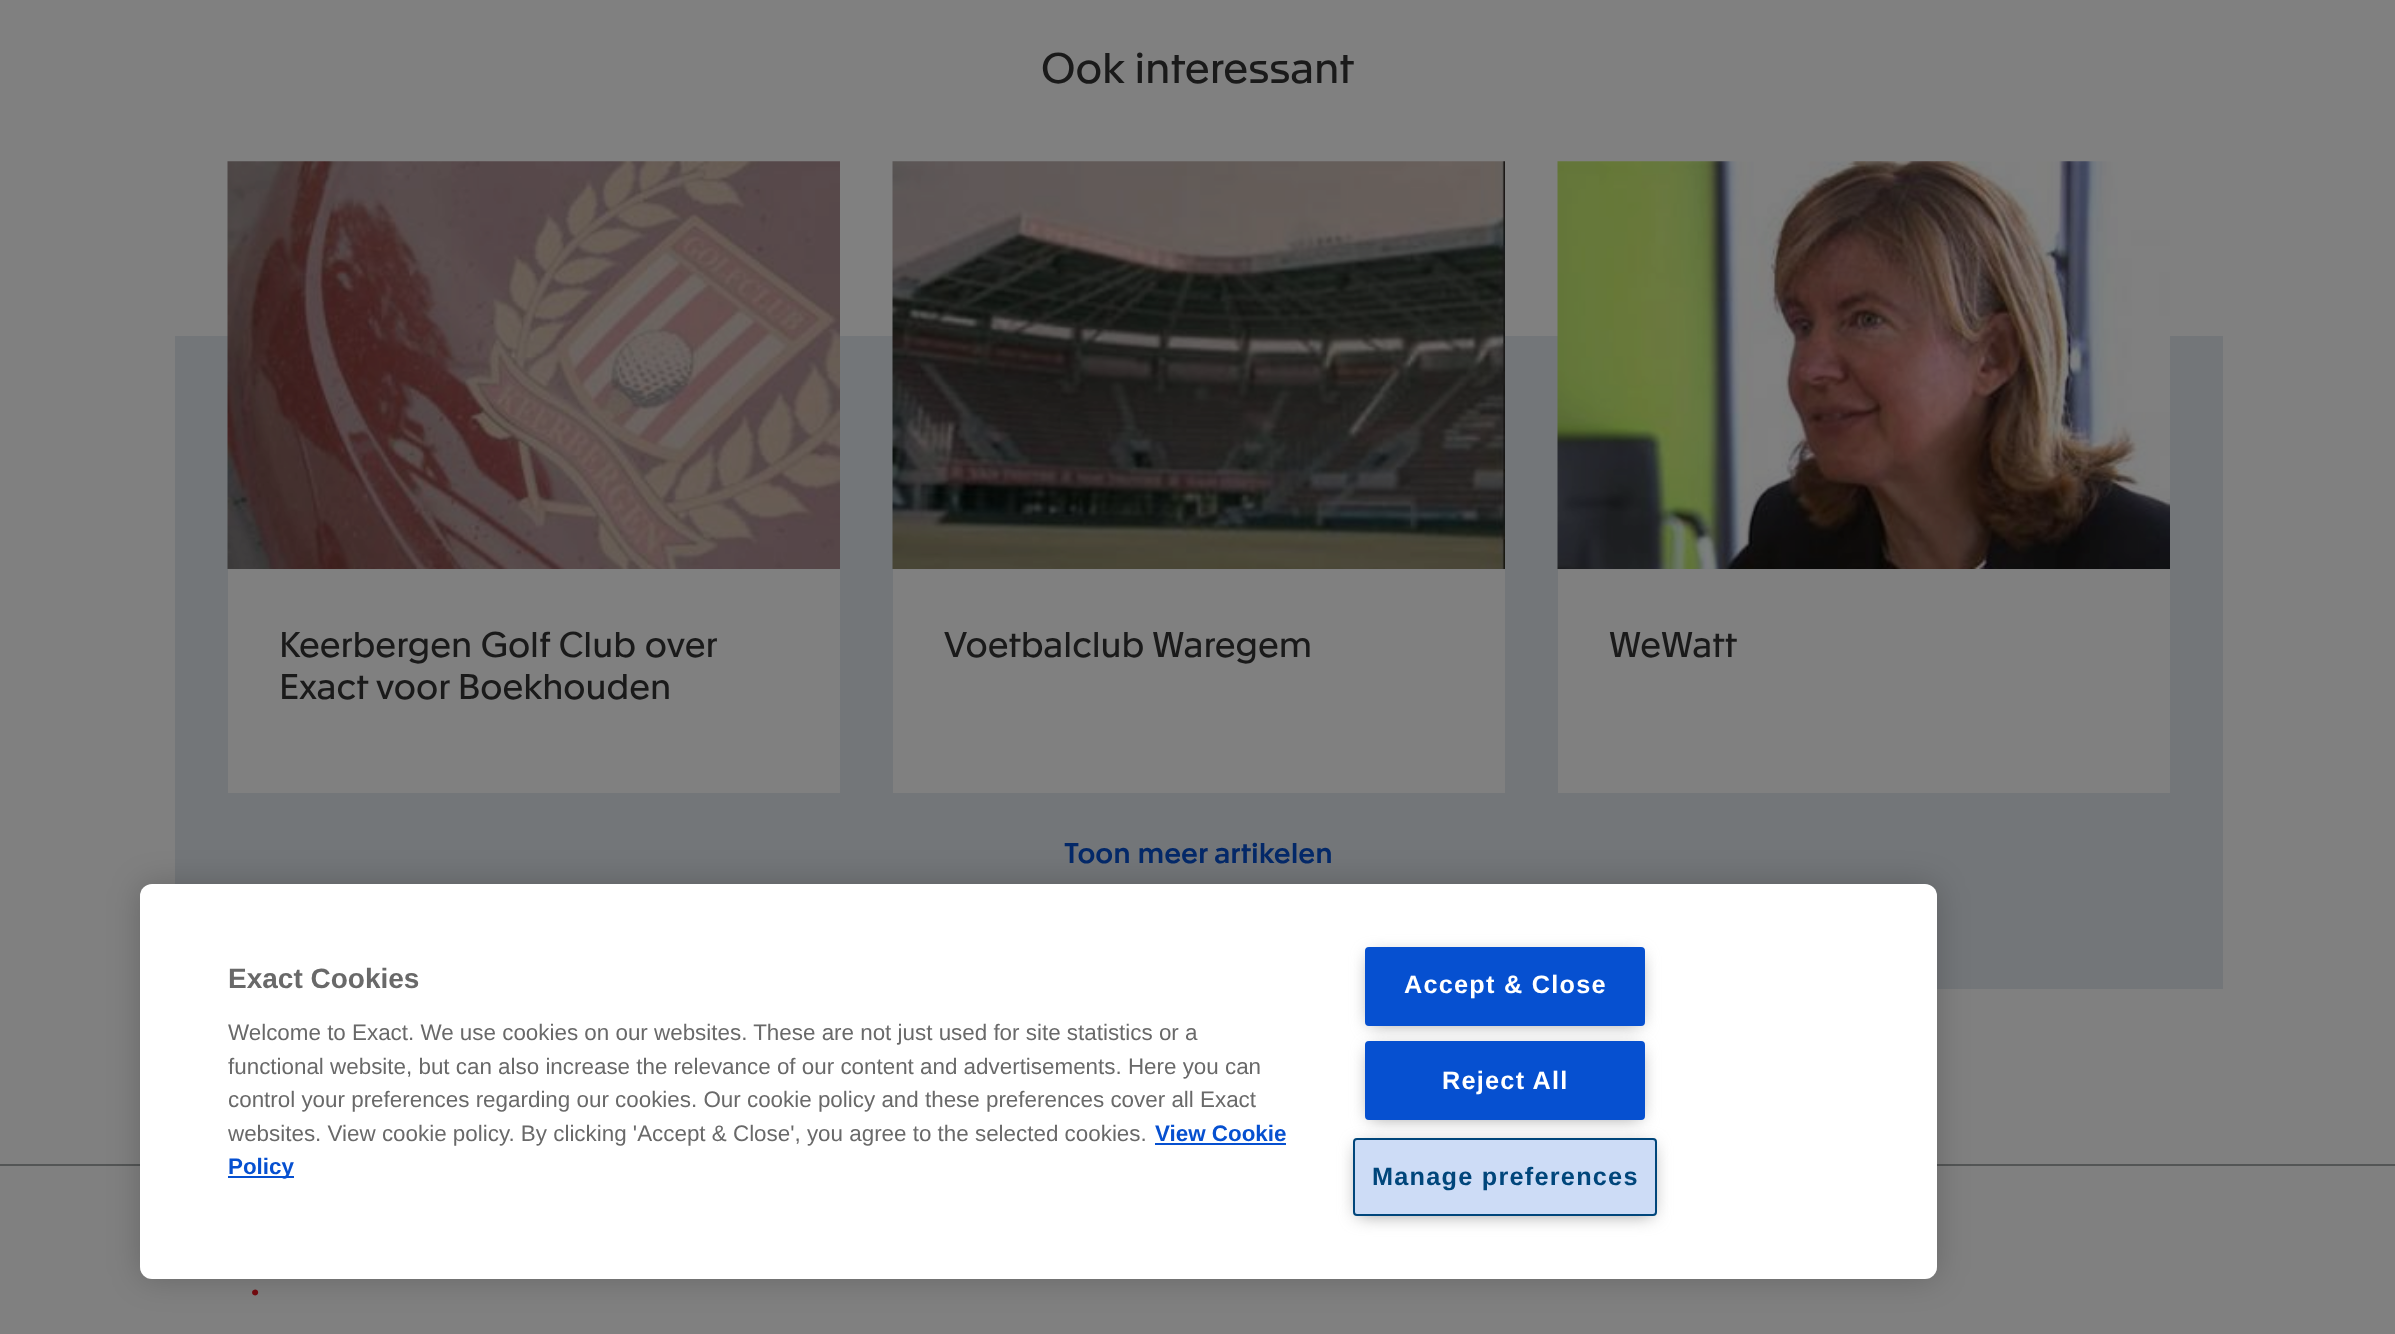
<?xml version="1.0" encoding="UTF-8"?>
<svg xmlns="http://www.w3.org/2000/svg" xmlns:xlink="http://www.w3.org/1999/xlink" width="2395" height="1334">
  <rect width="100%" height="100%" fill="#808080" />
  <rect x="175" y="336" width="2048" height="653" fill="#737679" />
  <rect x="228" y="336" width="612" height="457" fill="#808080" />
  <image x="227" y="161" width="613" height="408" xlink:href="image1.png" />
  <rect x="893" y="336" width="612" height="457" fill="#808080" />
  <image x="892" y="161" width="613" height="408" xlink:href="image2.png" />
  <rect x="1558" y="336" width="612" height="457" fill="#808080" />
  <image x="1557" y="161" width="613" height="408" xlink:href="image3.png" />
  <rect y="1164" width="2395" height="2" fill="#535555" />
  <rect x="140" y="884" width="1797" height="395" rx="12" fill="#000000" fill-opacity="0.2" filter="blur(16px)" />
  <rect x="140" y="884" width="1797" height="395" rx="12" fill="#ffffff" />
  <rect x="1155" y="1143" width="131" height="2" fill="#0650d0" />
  <rect x="228" y="1176" width="66" height="2" fill="#0650d0" />
  <rect x="1370" y="956" width="270" height="68" fill="#999999" filter="blur(9px)" />
  <rect x="1366" y="948" width="278" height="77" rx="3" fill="#0650d0" stroke="#0650d0" stroke-width="2" />
  <rect x="1370" y="1050" width="270" height="68" fill="#999999" filter="blur(9px)" />
  <rect x="1366" y="1042" width="278" height="77" rx="3" fill="#0650d0" stroke="#0650d0" stroke-width="2" />
  <rect x="1358" y="1146" width="294" height="69" fill="#999999" filter="blur(9px)" />
  <rect x="1354" y="1139" width="302" height="76" rx="3" fill="#cddcf6" stroke="#00467b" stroke-width="2" />
  <text x="1041" y="83" style="font-family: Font; font-size: 42px; fill: #1a1a1a">Ook interessant</text>
  <text x="279" y="657" style="font-family: Font; font-size: 35px; fill: #1a1a1a">Keerbergen Golf Club over</text>
  <text x="279" y="699" style="font-family: Font; font-size: 35px; fill: #1a1a1a">Exact voor Boekhouden</text>
  <text x="944" y="657" style="font-family: Font; font-size: 35px; fill: #1a1a1a">Voetbalclub Waregem</text>
  <text x="1609" y="657" style="font-family: Font; font-size: 35px; fill: #1a1a1a">WeWatt</text>
  <text x="1064" y="863" style="font-family: Font; font-size: 28px; font-weight: 500; fill: #032868">Toon meer artikelen</text>
  <text x="228" y="988" style="font-family: Liberation Sans; font-size: 28px; font-weight: bold; fill: #696969">Exact Cookies</text>
  <text x="228" y="1040" style="font-family: Liberation Sans; font-size: 22.4px; fill: #696969">Welcome to Exact. We use cookies on our websites. These are not just used for site statistics or a</text>
  <text x="228" y="1074" style="font-family: Liberation Sans; font-size: 22.4px; fill: #696969">functional website, but can also increase the relevance of our content and advertisements. Here you can</text>
  <text x="228" y="1107" style="font-family: Liberation Sans; font-size: 22.4px; fill: #696969">control your preferences regarding our cookies. Our cookie policy and these preferences cover all Exact</text>
  <text x="228" y="1141" style="font-family: Liberation Sans; font-size: 22.4px; fill: #696969">websites. View cookie policy. By clicking 'Accept &amp; Close', you agree to the selected cookies.</text>
  <text x="1155" y="1141" style="font-family: Liberation Sans; font-size: 22.4px; font-weight: bold; fill: #0650d0">View Cookie</text>
  <text x="228" y="1174" style="font-family: Liberation Sans; font-size: 22.4px; font-weight: bold; fill: #0650d0">Policy</text>
  <text x="1404" y="993" style="font-family: Liberation Sans; font-size: 25.25px; font-weight: bold; letter-spacing: 1.25px; fill: #ffffff">Accept &amp; Close</text>
  <text x="1442" y="1089" style="font-family: Liberation Sans; font-size: 25.25px; font-weight: bold; letter-spacing: 1.25px; fill: #ffffff">Reject All</text>
  <text x="1372" y="1185" style="font-family: Liberation Sans; font-size: 25.25px; font-weight: bold; letter-spacing: 1.25px; fill: #00467b">Manage preferences</text>
  <text x="250" y="1295" style="font-family: Font; font-size: 42px; fill: #710a0f">.</text>
</svg>
